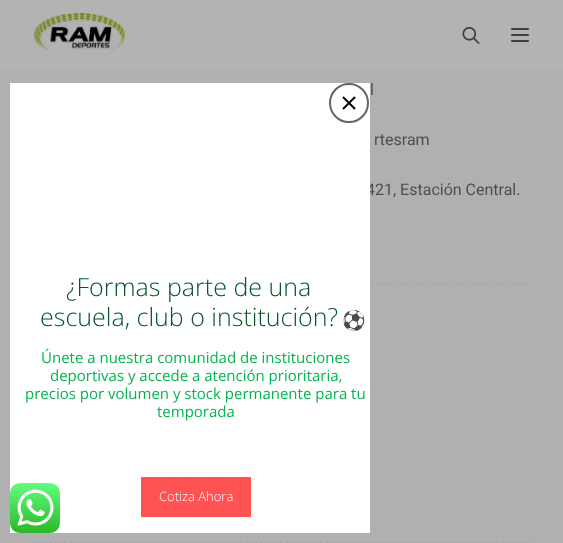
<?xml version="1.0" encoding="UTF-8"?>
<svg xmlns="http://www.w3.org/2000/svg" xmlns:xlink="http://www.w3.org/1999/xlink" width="563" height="543">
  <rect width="100%" height="100%" fill="#b0b0b0" />
  <rect width="563" height="70" fill="#b3b3b3" />
  <image x="33" y="13" width="92" height="43" xlink:href="image1.png" />
  <image x="462" y="27" width="18" height="17" xlink:href="image2.png" />
  <rect x="511" y="28" width="18" height="2" rx="1" fill="#3f3e41" />
  <rect x="511" y="34" width="18" height="2" rx="1" fill="#3f3e41" />
  <rect x="511" y="40" width="18" height="2" rx="1" fill="#3f3e41" />
  <path d="M 34 284.5 h 495" fill="none" stroke="#a6a6a6" stroke-dasharray="3 2.02" />
  <path d="M 34 542.5 h 495" fill="none" stroke="#a6a6a6" stroke-dasharray="3 2.02" />
  <text x="370" y="95" style="font-family: Roboto; font-size: 16px; fill: #495055">l</text>
  <text x="374" y="145" style="font-family: Roboto; font-size: 16px; fill: #495055">rtesram</text>
  <text x="366" y="195" style="font-family: Roboto; font-size: 16px; fill: #495055">421, Estación Central.</text>
  <rect x="10" y="83" width="360" height="450" fill="#ffffff" />
  <circle cx="349" cy="103" r="19" fill="none" stroke="#656565" stroke-width="2" />
  <image x="342" y="96" width="14" height="14" xlink:href="image3.png" />
  <text x="66" y="296" style="font-family: Open Sans; font-size: 25px; font-weight: 300; fill: #055427">¿Formas parte de una</text>
  <text x="40" y="326" style="font-family: Open Sans; font-size: 25px; font-weight: 300; fill: #055427">escuela, club o institución?</text>
  <text x="342" y="327" style="font-family: Noto Color Emoji; font-size: 19px; fill: #050505">⚽</text>
  <text x="41" y="363" style="font-family: Open Sans; font-size: 15px; fill: #05b450">Únete a nuestra comunidad de instituciones</text>
  <text x="50" y="381" style="font-family: Open Sans; font-size: 15px; fill: #05b450">deportivas y accede a atención prioritaria,</text>
  <text x="25" y="399" style="font-family: Open Sans; font-size: 15px; fill: #05b450">precios por volumen y stock permanente para tu</text>
  <text x="157" y="417" style="font-family: Open Sans; font-size: 15px; fill: #05b450">temporada</text>
  <rect x="141" y="477" width="110" height="40" fill="#ff5252" />
  <text x="159" y="501" style="font-family: Open Sans; font-size: 13px; font-weight: 300; fill: #ffffff">Cotiza Ahora</text>
  <image x="10" y="483" width="50" height="50" xlink:href="image4.png" />
</svg>
